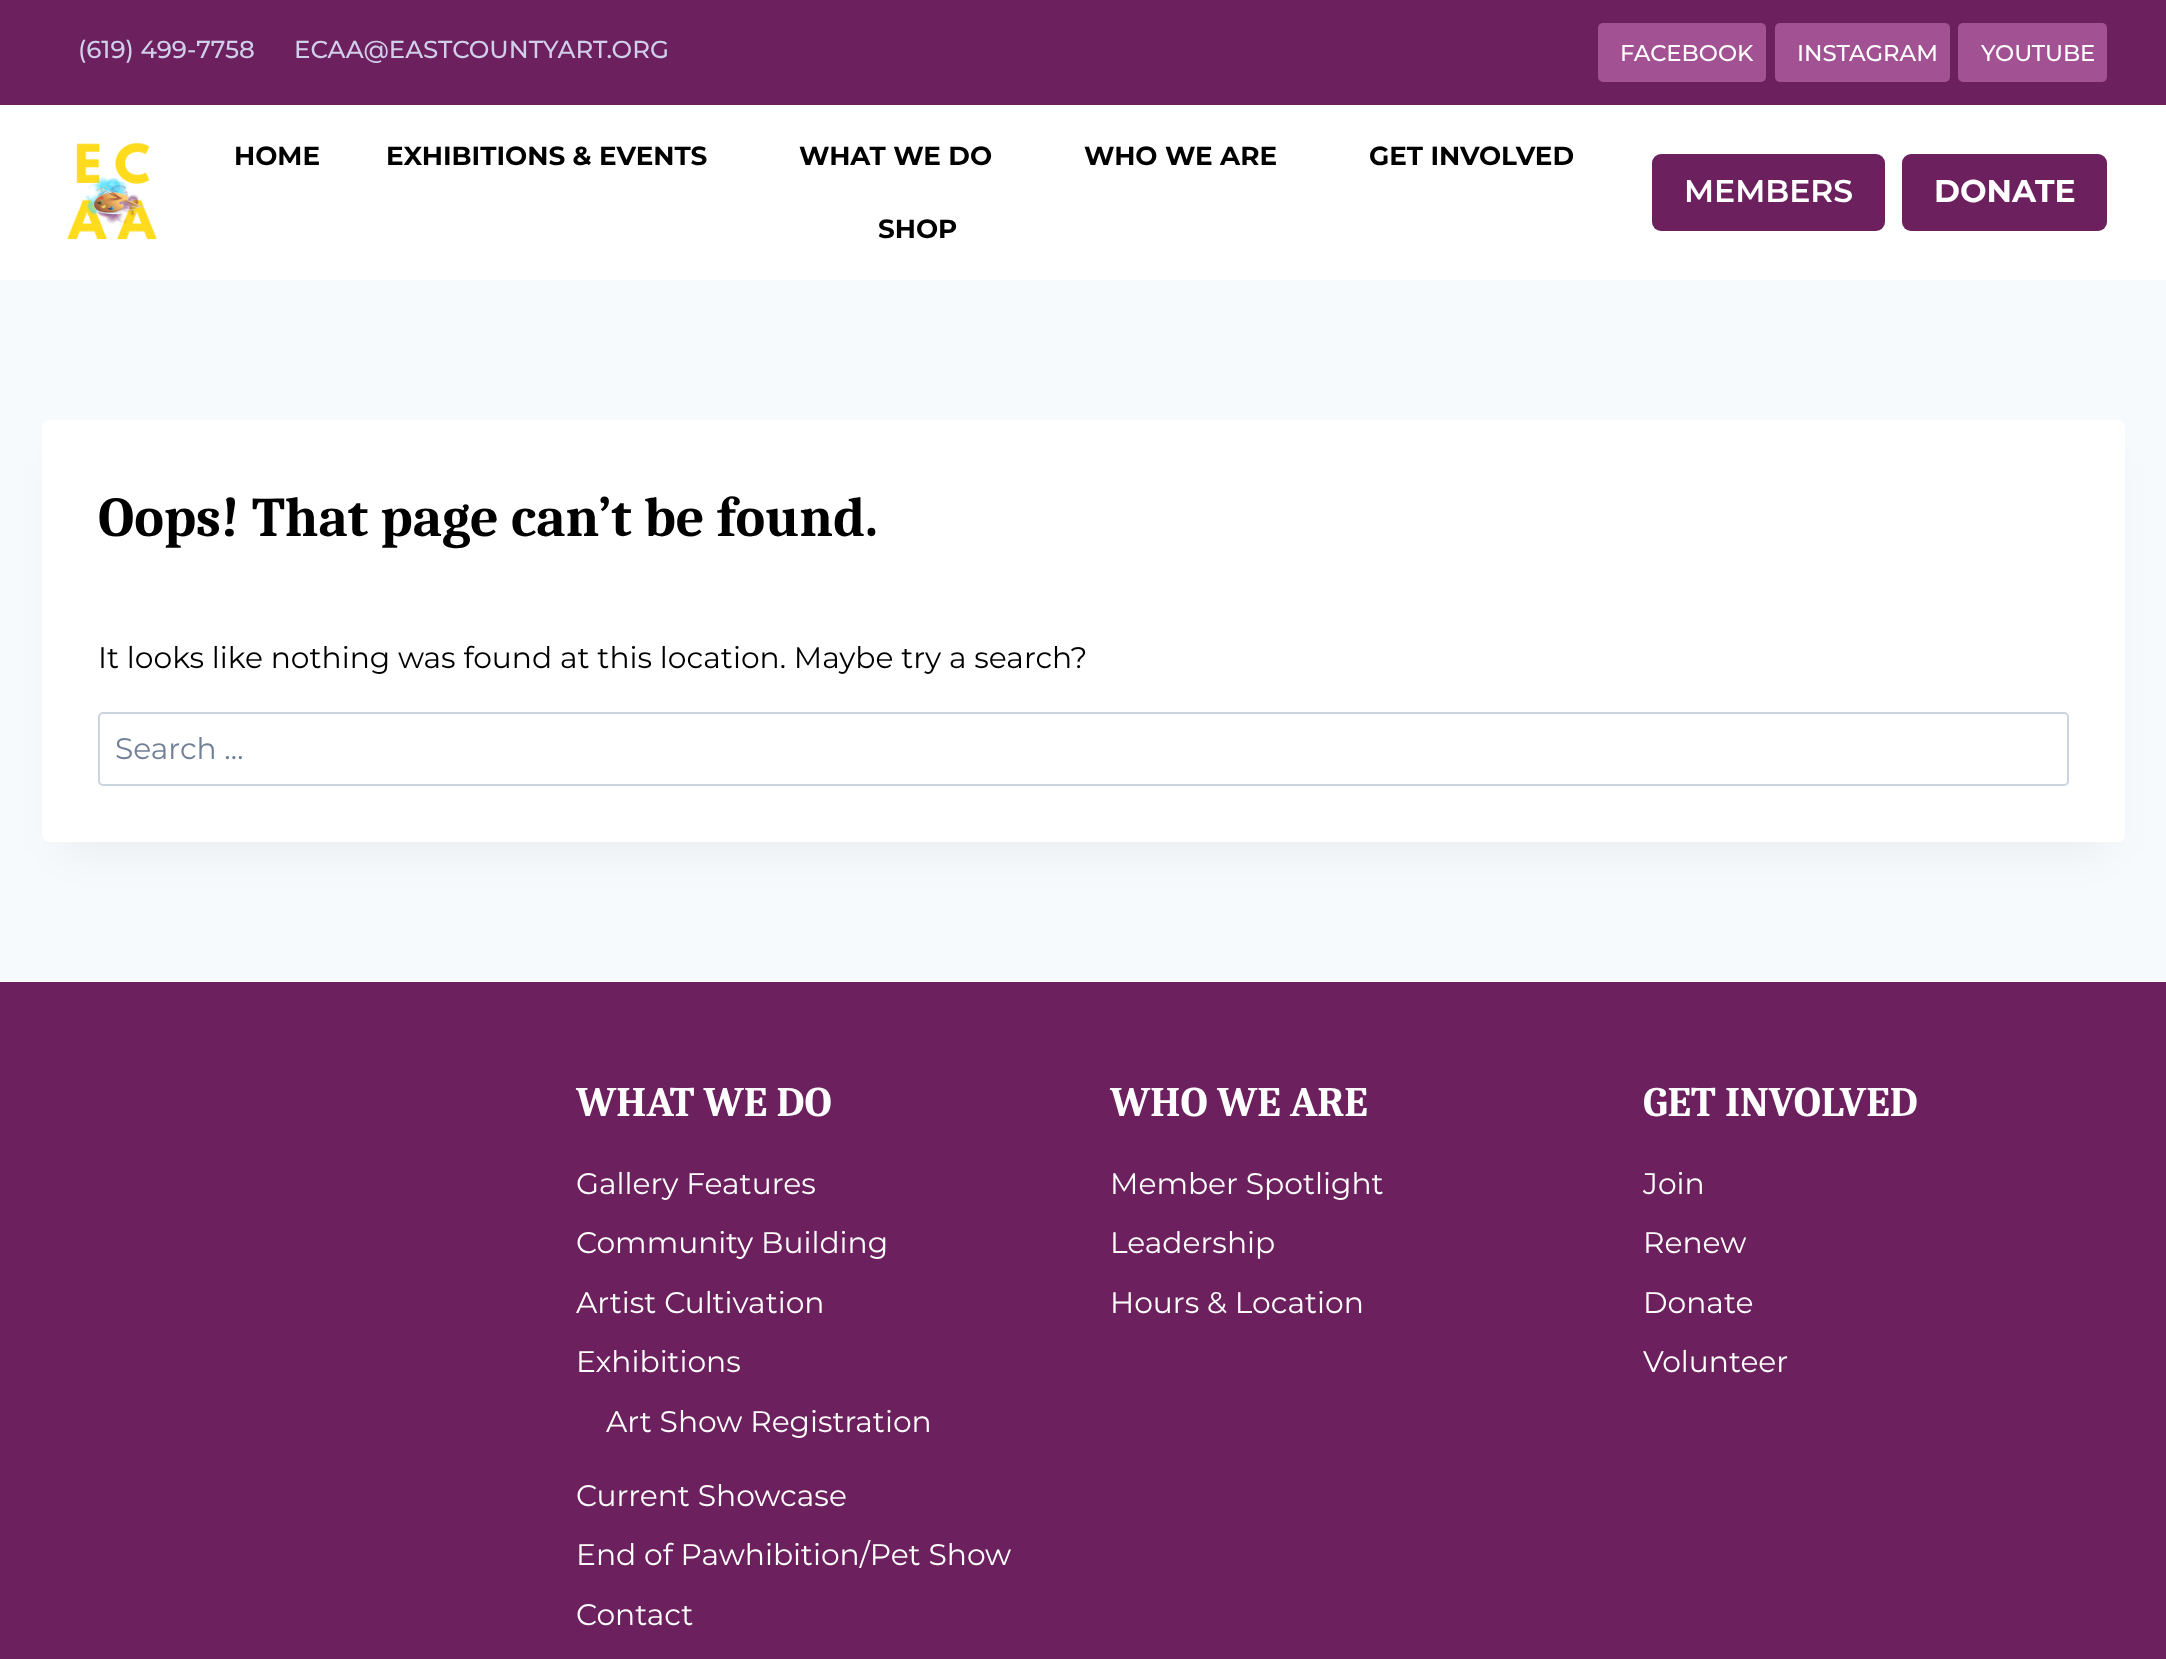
<?xml version="1.0" encoding="UTF-8"?>
<svg xmlns="http://www.w3.org/2000/svg" xmlns:xlink="http://www.w3.org/1999/xlink" width="2166" height="1659">
  <rect width="100%" height="100%" fill="#f7fafc" />
  <rect y="105" width="2166" height="175" fill="#ffffff" />
  <rect width="2166" height="105" fill="#6c205e" />
  <rect x="1598" y="23" width="168" height="59" rx="5" fill="#a25193" />
  <rect x="1775" y="23" width="175" height="59" rx="5" fill="#a25193" />
  <rect x="1958" y="23" width="149" height="59" rx="5" fill="#a25193" />
  <image x="67" y="142" width="90" height="98" xlink:href="image1.png" />
  <rect x="1652" y="154" width="233" height="77" rx="9" fill="#6c205e" />
  <rect x="1902" y="154" width="205" height="77" rx="9" fill="#6c205e" />
  <rect x="60" y="464" width="2047" height="387" fill="#000000" fill-opacity="0.05" filter="blur(22px)" />
  <rect x="42" y="420" width="2083" height="422" rx="7" fill="#ffffff" />
  <rect x="99" y="713" width="1969" height="72" rx="4" fill="none" stroke="#cbd5e0" stroke-width="2" />
  <rect y="982" width="2166" height="677" fill="#6c205e" />
  <text x="78" y="58" style="font-family: Montserrat; font-size: 24.5px; font-weight: 500; fill: #d0cee9">(619) 499-7758</text>
  <text x="294" y="58" style="font-family: Montserrat; font-size: 24.5px; font-weight: 500; fill: #d0cee9">ECAA@EASTCOUNTYART.ORG</text>
  <text x="1620" y="61" style="font-family: Montserrat; font-size: 22.75px; font-weight: 500; fill: #ffffff">FACEBOOK</text>
  <text x="1797" y="61" style="font-family: Montserrat; font-size: 22.75px; font-weight: 500; fill: #ffffff">INSTAGRAM</text>
  <text x="1981" y="61" style="font-family: Montserrat; font-size: 22.75px; font-weight: 500; fill: #ffffff">YOUTUBE</text>
  <text x="234" y="165" style="font-family: Montserrat; font-size: 26.25px; font-weight: bold; fill: #000000">HOME</text>
  <text x="386" y="165" style="font-family: Montserrat; font-size: 26.25px; font-weight: bold; fill: #000000">EXHIBITIONS &amp; EVENTS</text>
  <text x="799" y="165" style="font-family: Montserrat; font-size: 26.25px; font-weight: bold; fill: #000000">WHAT WE DO</text>
  <text x="1084" y="165" style="font-family: Montserrat; font-size: 26.25px; font-weight: bold; fill: #000000">WHO WE ARE</text>
  <text x="1369" y="165" style="font-family: Montserrat; font-size: 26.25px; font-weight: bold; fill: #000000">GET INVOLVED</text>
  <text x="878" y="238" style="font-family: Montserrat; font-size: 26.25px; font-weight: bold; fill: #000000">SHOP</text>
  <text x="1684" y="202" style="font-family: Montserrat; font-size: 31.5px; font-weight: 600; fill: #ffffff">MEMBERS</text>
  <text x="1934" y="202" style="font-family: Montserrat; font-size: 31.5px; font-weight: bold; fill: #ffffff">DONATE</text>
  <text x="98" y="536" style="font-family: Caladea; font-size: 56px; font-weight: bold; fill: #000000">Oops! That page can’t be found.</text>
  <text x="98" y="668" style="font-family: Montserrat; font-size: 29.75px; fill: #000000">It looks like nothing was found at this location. Maybe try a search?</text>
  <text x="115" y="759" style="font-family: Montserrat; font-size: 29.75px; fill: #718096">Search …</text>
  <text x="576" y="1116" style="font-family: Caladea; font-size: 42px; font-weight: bold; fill: #ffffff">WHAT WE DO</text>
  <text x="576" y="1194" style="font-family: Montserrat; font-size: 29.75px; fill: #ffffff">Gallery Features</text>
  <text x="576" y="1253" style="font-family: Montserrat; font-size: 29.75px; fill: #ffffff">Community Building</text>
  <text x="576" y="1313" style="font-family: Montserrat; font-size: 29.75px; fill: #ffffff">Artist Cultivation</text>
  <text x="576" y="1372" style="font-family: Montserrat; font-size: 29.75px; fill: #ffffff">Exhibitions</text>
  <text x="606" y="1432" style="font-family: Montserrat; font-size: 29.75px; fill: #ffffff">Art Show Registration</text>
  <text x="576" y="1506" style="font-family: Montserrat; font-size: 29.75px; fill: #ffffff">Current Showcase</text>
  <text x="576" y="1565" style="font-family: Montserrat; font-size: 29.75px; fill: #ffffff">End of Pawhibition/Pet Show</text>
  <text x="576" y="1625" style="font-family: Montserrat; font-size: 29.75px; fill: #ffffff">Contact</text>
  <text x="1110" y="1116" style="font-family: Caladea; font-size: 42px; font-weight: bold; fill: #ffffff">WHO WE ARE</text>
  <text x="1110" y="1194" style="font-family: Montserrat; font-size: 29.75px; fill: #ffffff">Member Spotlight</text>
  <text x="1110" y="1253" style="font-family: Montserrat; font-size: 29.75px; fill: #ffffff">Leadership</text>
  <text x="1110" y="1313" style="font-family: Montserrat; font-size: 29.75px; fill: #ffffff">Hours &amp; Location</text>
  <text x="1643" y="1116" style="font-family: Caladea; font-size: 42px; font-weight: bold; fill: #ffffff">GET INVOLVED</text>
  <text x="1643" y="1194" style="font-family: Montserrat; font-size: 29.75px; fill: #ffffff">Join</text>
  <text x="1643" y="1253" style="font-family: Montserrat; font-size: 29.75px; fill: #ffffff">Renew</text>
  <text x="1643" y="1313" style="font-family: Montserrat; font-size: 29.75px; fill: #ffffff">Donate</text>
  <text x="1643" y="1372" style="font-family: Montserrat; font-size: 29.75px; fill: #ffffff">Volunteer</text>
</svg>
